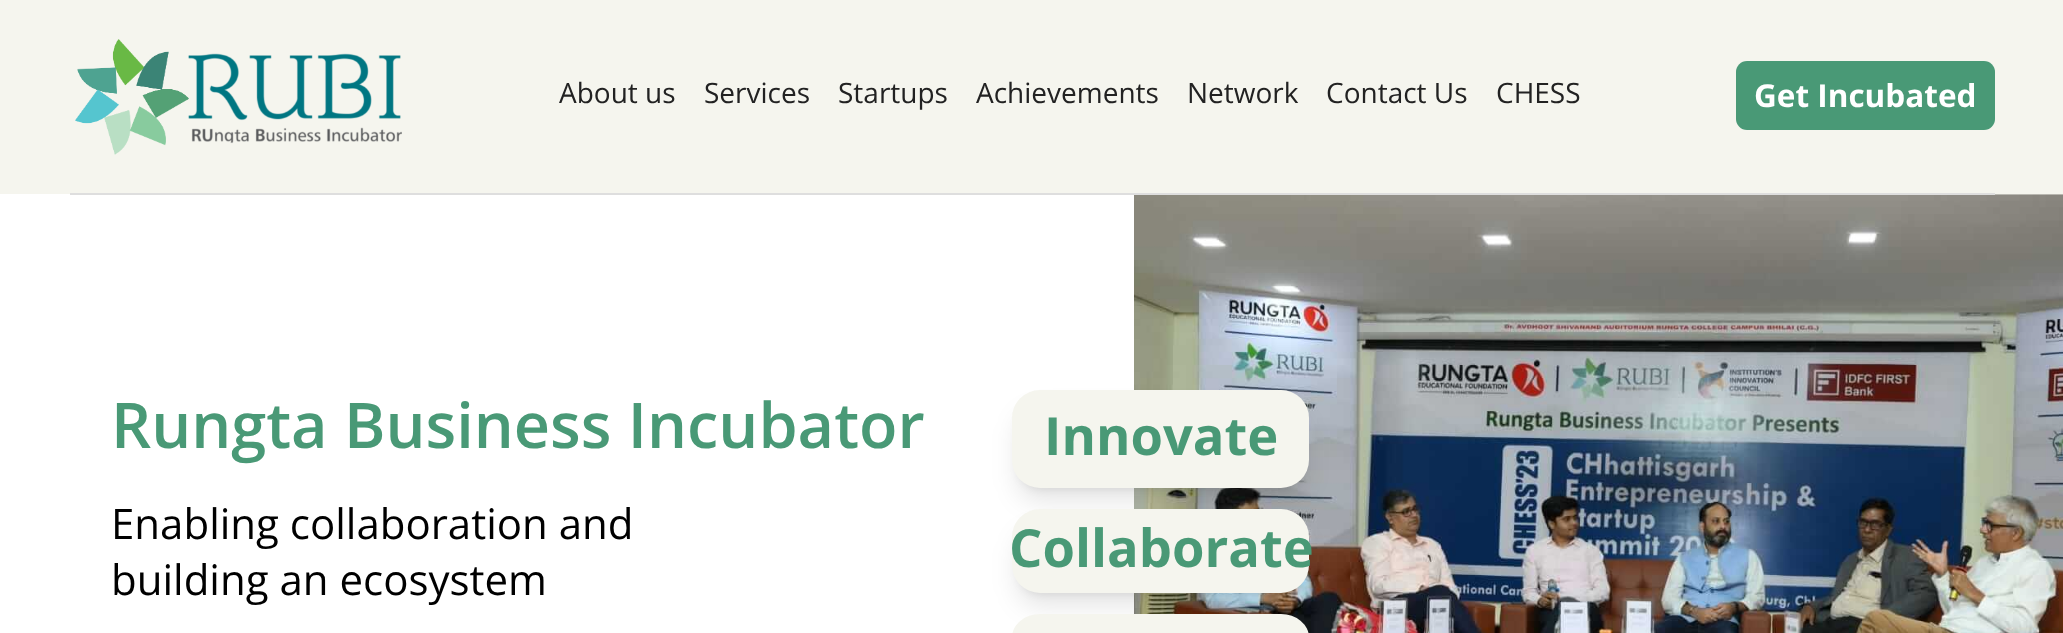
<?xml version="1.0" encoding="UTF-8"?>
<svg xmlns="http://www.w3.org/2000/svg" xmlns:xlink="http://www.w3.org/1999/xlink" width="2063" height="633">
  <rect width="100%" height="100%" fill="#f5f5ee" />
  <rect y="194" width="1134" height="439" fill="#ffffff" />
  <image x="1134" y="194" width="929" height="439" xlink:href="image2.png" />
  <rect x="70" y="193" width="1925" height="2" fill="#dedede" />
  <image x="75" y="39" width="327" height="116" xlink:href="image1.png" />
  <rect x="1736" y="61" width="259" height="69" rx="11" fill="#499976" />
  <rect x="1019" y="404" width="283" height="84" rx="21" fill="#000000" fill-opacity="0.1" filter="blur(5px)" />
  <rect x="1017" y="413" width="287" height="88" rx="23" fill="#000000" fill-opacity="0.1" filter="blur(13px)" />
  <rect x="1012" y="390" width="297" height="98" rx="28" fill="#f5f5ee" />
  <rect x="1019" y="523" width="283" height="70" rx="21" fill="#000000" fill-opacity="0.1" filter="blur(5px)" />
  <rect x="1017" y="532" width="287" height="74" rx="23" fill="#000000" fill-opacity="0.1" filter="blur(13px)" />
  <rect x="1012" y="509" width="297" height="84" rx="28" fill="#f5f5ee" />
  <rect x="1012" y="614" width="297" height="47" rx="28" fill="#f5f5ee" />
  <text x="559" y="103" style="font-family: Open Sans; font-size: 28px; fill: #222222">About us</text>
  <text x="704" y="103" style="font-family: Open Sans; font-size: 28px; fill: #222222">Services</text>
  <text x="838" y="103" style="font-family: Open Sans; font-size: 28px; fill: #222222">Startups</text>
  <text x="976" y="103" style="font-family: Open Sans; font-size: 28px; fill: #222222">Achievements</text>
  <text x="1187" y="103" style="font-family: Open Sans; font-size: 28px; fill: #222222">Network</text>
  <text x="1326" y="103" style="font-family: Open Sans; font-size: 28px; fill: #222222">Contact Us</text>
  <text x="1496" y="103" style="font-family: Open Sans; font-size: 28px; fill: #222222">CHESS</text>
  <text x="1754" y="107" style="font-family: Open Sans; font-size: 31.5px; font-weight: bold; fill: #ffffff">Get Incubated</text>
  <text x="111" y="448" style="font-family: Open Sans; font-size: 63px; font-weight: 600; fill: #499976">Rungta Business Incubator</text>
  <text x="111" y="539" style="font-family: Open Sans; font-size: 42px; fill: #000000">Enabling collaboration and</text>
  <text x="111" y="595" style="font-family: Open Sans; font-size: 42px; fill: #000000">building an ecosystem</text>
  <text x="1044" y="455" style="font-family: Open Sans; font-size: 52.5px; font-weight: bold; fill: #499976">Innovate</text>
  <text x="1009" y="567" style="font-family: Open Sans; font-size: 52.5px; font-weight: bold; fill: #499976">Collaborate</text>
</svg>
